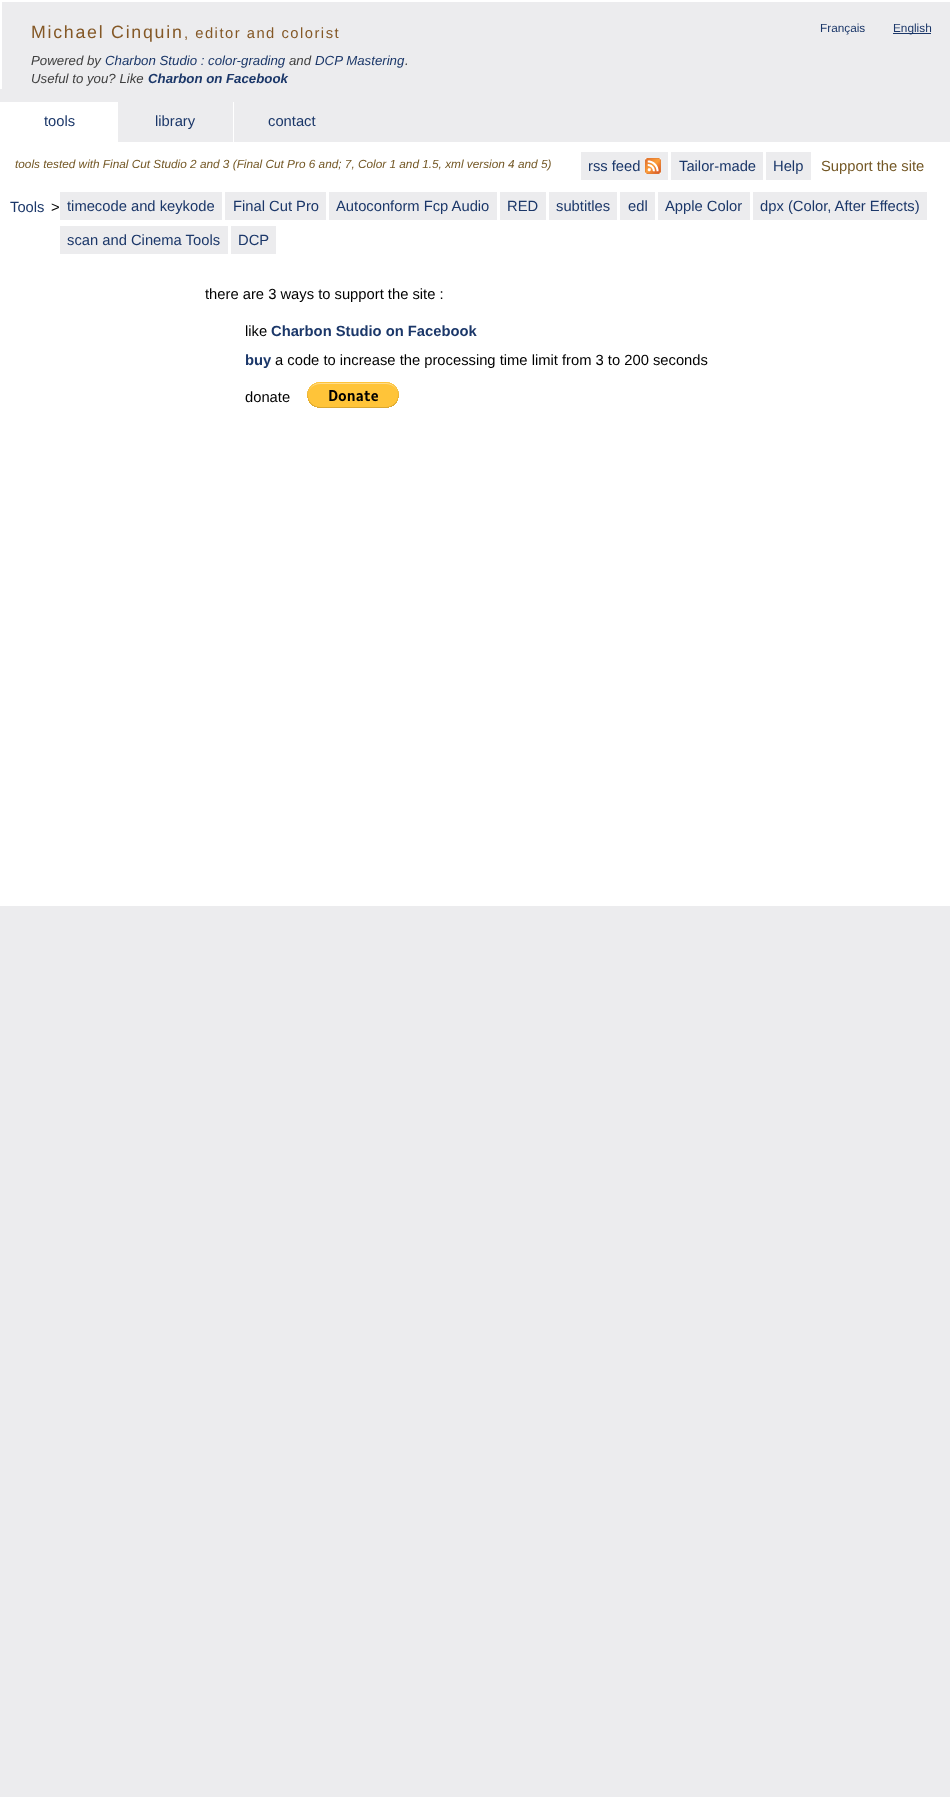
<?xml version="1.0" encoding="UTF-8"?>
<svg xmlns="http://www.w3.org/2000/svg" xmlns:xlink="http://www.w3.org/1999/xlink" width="950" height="1797">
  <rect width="100%" height="100%" fill="#ececee" />
  <rect width="950" height="2" fill="#ffffff" />
  <rect width="2" height="89" fill="#ffffff" />
  <rect x="893" y="33" width="38" height="1" fill="#1b3769" />
  <rect y="102" width="118" height="40" fill="#ffffff" />
  <rect x="233" y="102" width="1" height="40" fill="#ffffff" />
  <rect y="142" width="950" height="764" fill="#ffffff" />
  <rect x="581" y="152" width="87" height="28" fill="#ececee" />
  <image x="645" y="158" width="16" height="16" xlink:href="image1.png" />
  <rect x="671" y="152" width="92" height="28" fill="#ececee" />
  <rect x="766" y="152" width="45" height="28" fill="#ececee" />
  <rect x="60" y="192" width="162" height="28" fill="#ececee" />
  <rect x="225" y="192" width="101" height="28" fill="#ececee" />
  <rect x="329" y="192" width="168" height="28" fill="#ececee" />
  <rect x="500" y="192" width="46" height="28" fill="#ececee" />
  <rect x="549" y="192" width="68" height="28" fill="#ececee" />
  <rect x="620" y="192" width="35" height="28" fill="#ececee" />
  <rect x="658" y="192" width="92" height="28" fill="#ececee" />
  <rect x="753" y="192" width="174" height="28" fill="#ececee" />
  <rect x="60" y="226" width="168" height="28" fill="#ececee" />
  <rect x="231" y="226" width="45" height="28" fill="#ececee" />
  <image x="307" y="382" width="92" height="26" xlink:href="image2.png" />
  <text x="31" y="38" style="font-family: Liberation Sans; font-size: 17.75px; letter-spacing: 1.75px; fill: #845826">Michael Cinquin</text>
  <text x="184" y="38" style="font-family: Liberation Sans; font-size: 14.75px; letter-spacing: 1.5px; fill: #845826">, editor and colorist</text>
  <text x="820" y="32" style="font-family: Liberation Sans; font-size: 11.8px; fill: #1b3769">Français</text>
  <text x="893" y="32" style="font-family: Liberation Sans; font-size: 11.8px; fill: #1b3769">English</text>
  <text x="31" y="65" style="font-family: Liberation Sans; font-size: 13.25px; font-style: italic; fill: #3f3f3f">Powered by</text>
  <text x="105" y="65" style="font-family: Liberation Sans; font-size: 13.25px; font-style: italic; fill: #1b3769">Charbon Studio : color-grading</text>
  <text x="289" y="65" style="font-family: Liberation Sans; font-size: 13.25px; font-style: italic; fill: #3f3f3f">and</text>
  <text x="315" y="65" style="font-family: Liberation Sans; font-size: 13.25px; font-style: italic; fill: #1b3769">DCP Mastering</text>
  <text x="405" y="65" style="font-family: Liberation Sans; font-size: 13.25px; font-style: italic; fill: #3f3f3f">.</text>
  <text x="31" y="83" style="font-family: Liberation Sans; font-size: 13.25px; font-style: italic; fill: #3f3f3f">Useful to you? Like</text>
  <text x="148" y="83" style="font-family: Liberation Sans; font-size: 13.25px; font-weight: bold; font-style: italic; fill: #1b3769">Charbon on Facebook</text>
  <text x="44" y="126" style="font-family: Liberation Sans; font-size: 14.75px; fill: #1b3769">tools</text>
  <text x="155" y="126" style="font-family: Liberation Sans; font-size: 14.75px; fill: #1b3769">library</text>
  <text x="268" y="126" style="font-family: Liberation Sans; font-size: 14.75px; fill: #1b3769">contact</text>
  <text x="15" y="168" style="font-family: Liberation Sans; font-size: 11.8px; font-style: italic; fill: #745826">tools tested with Final Cut Studio 2 and 3 (Final Cut Pro 6 and; 7, Color 1 and 1.5, xml version 4 and 5)</text>
  <text x="588" y="171" style="font-family: Liberation Sans; font-size: 14.75px; fill: #1b3769">rss feed</text>
  <text x="679" y="171" style="font-family: Liberation Sans; font-size: 14.75px; fill: #1b3769">Tailor-made</text>
  <text x="773" y="171" style="font-family: Liberation Sans; font-size: 14.75px; fill: #1b3769">Help</text>
  <text x="821" y="171" style="font-family: Liberation Sans; font-size: 14.75px; fill: #745826">Support the site</text>
  <text x="67" y="211" style="font-family: Liberation Sans; font-size: 14.75px; fill: #1b3769">timecode and keykode</text>
  <text x="233" y="211" style="font-family: Liberation Sans; font-size: 14.75px; fill: #1b3769">Final Cut Pro</text>
  <text x="336" y="211" style="font-family: Liberation Sans; font-size: 14.75px; fill: #1b3769">Autoconform Fcp Audio</text>
  <text x="507" y="211" style="font-family: Liberation Sans; font-size: 14.75px; fill: #1b3769">RED</text>
  <text x="556" y="211" style="font-family: Liberation Sans; font-size: 14.75px; fill: #1b3769">subtitles</text>
  <text x="628" y="211" style="font-family: Liberation Sans; font-size: 14.75px; fill: #1b3769">edl</text>
  <text x="665" y="211" style="font-family: Liberation Sans; font-size: 14.75px; fill: #1b3769">Apple Color</text>
  <text x="760" y="211" style="font-family: Liberation Sans; font-size: 14.75px; fill: #1b3769">dpx (Color, After Effects)</text>
  <text x="67" y="245" style="font-family: Liberation Sans; font-size: 14.75px; fill: #1b3769">scan and Cinema Tools</text>
  <text x="238" y="245" style="font-family: Liberation Sans; font-size: 14.75px; fill: #1b3769">DCP</text>
  <text x="10" y="212" style="font-family: Liberation Sans; font-size: 14.75px; fill: #1b3769">Tools</text>
  <text x="51" y="212" style="font-family: Liberation Sans; font-size: 14.75px; fill: #000000">&gt;</text>
  <text x="205" y="299" style="font-family: Liberation Sans; font-size: 14.75px; fill: #000000">there are 3 ways to support the site :</text>
  <text x="245" y="336" style="font-family: Liberation Sans; font-size: 14.75px; fill: #000000">like</text>
  <text x="271" y="336" style="font-family: Liberation Sans; font-size: 14.75px; font-weight: bold; fill: #1b3769">Charbon Studio on Facebook</text>
  <text x="245" y="365" style="font-family: Liberation Sans; font-size: 14.75px; font-weight: bold; fill: #1b3769">buy</text>
  <text x="275" y="365" style="font-family: Liberation Sans; font-size: 14.75px; fill: #000000">a code to increase the processing time limit from 3 to 200 seconds</text>
  <text x="245" y="402" style="font-family: Liberation Sans; font-size: 14.75px; fill: #000000">donate</text>
</svg>
